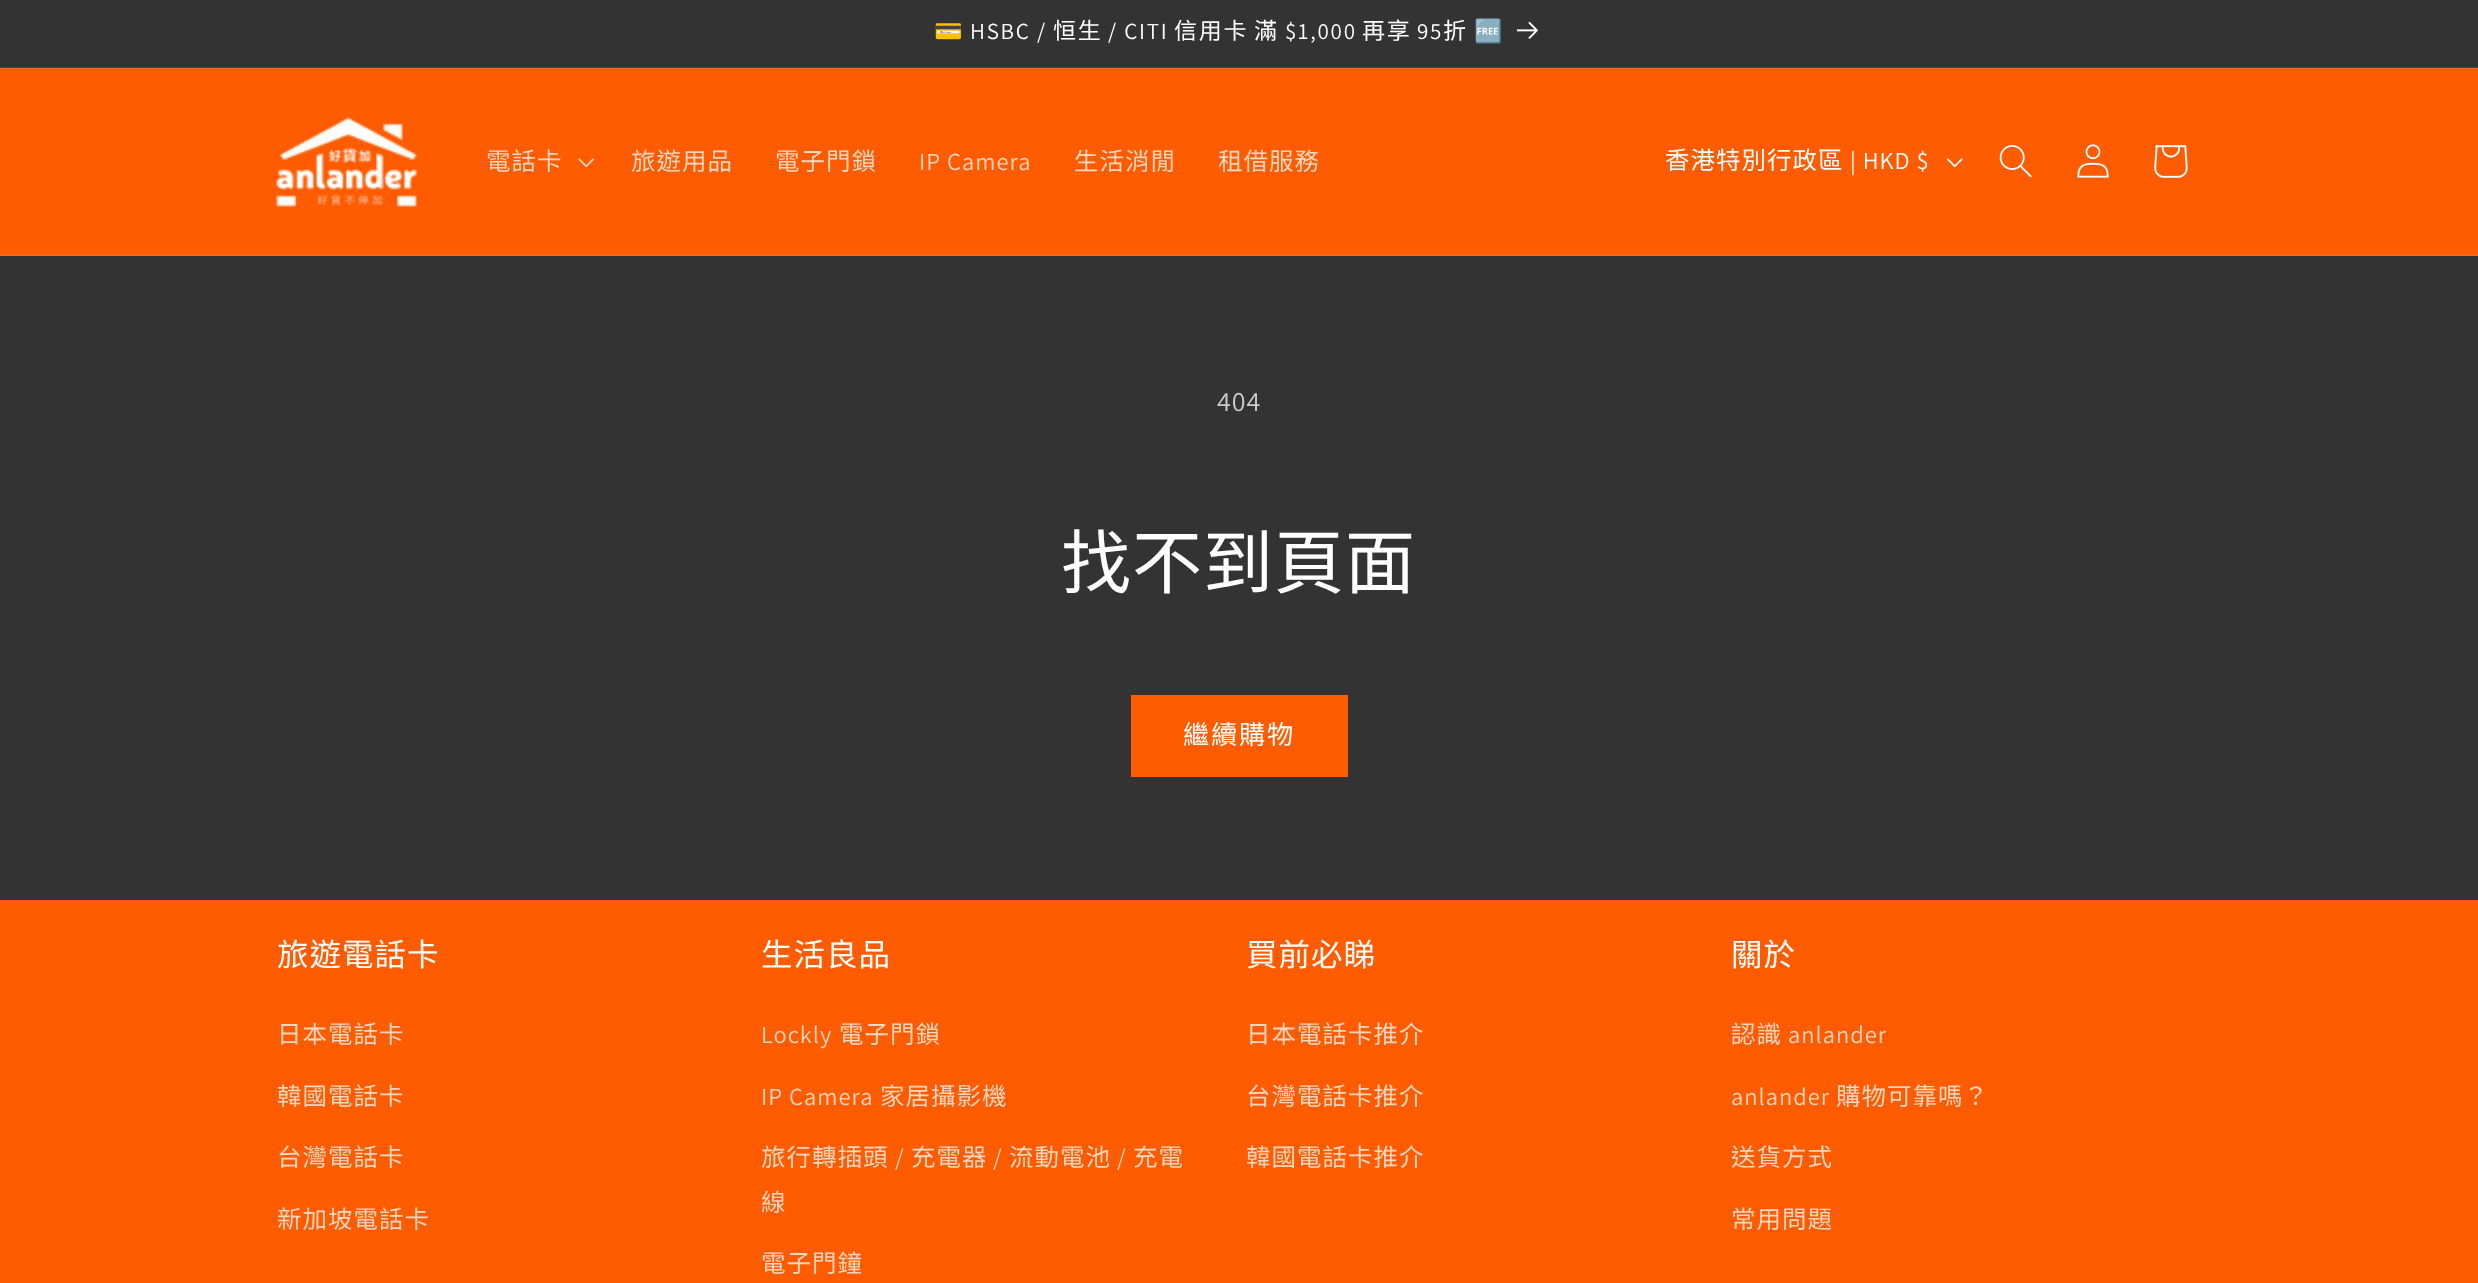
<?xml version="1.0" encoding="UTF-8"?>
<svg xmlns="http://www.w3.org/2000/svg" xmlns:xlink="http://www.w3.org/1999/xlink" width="2478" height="1283">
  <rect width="100%" height="100%" fill="#333333" />
  <rect y="67" width="2478" height="1" fill="#434343" />
  <image x="1517" y="21" width="21" height="18" xlink:href="image1.png" />
  <rect y="69" width="2478" height="185" fill="#ff5b00" />
  <rect y="68" width="2478" height="1" fill="#ff6814" />
  <rect y="254" width="2478" height="2" fill="#ff6814" />
  <image x="276" y="117" width="141" height="90" xlink:href="image2.png" />
  <image x="578" y="158" width="17" height="10" xlink:href="image3.png" />
  <image x="1946" y="158" width="17" height="10" xlink:href="image4.png" />
  <image x="1999" y="145" width="33" height="33" xlink:href="image5.png" />
  <image x="2077" y="144" width="32" height="34" xlink:href="image6.png" />
  <image x="2154" y="145" width="34" height="33" xlink:href="image7.png" />
  <rect x="1131" y="695" width="217" height="82" fill="#ff5b00" />
  <rect y="900" width="2478" height="383" fill="#ff5b00" />
  <text x="934" y="39" style="font-family: Noto Color Emoji; font-size: 23px; letter-spacing: 1.75px; fill: #ffffff">💳</text>
  <text x="970" y="39" style="font-family: Assistant; font-size: 23px; letter-spacing: 1.75px; fill: #ffffff">HSBC /</text>
  <text x="1053" y="39" style="font-family: Noto Sans CJK TC; font-size: 23px; letter-spacing: 1.75px; fill: #ffffff">恒生</text>
  <text x="1108" y="39" style="font-family: Assistant; font-size: 23px; letter-spacing: 1.75px; fill: #ffffff">/ CITI</text>
  <text x="1174" y="39" style="font-family: Noto Sans CJK TC; font-size: 23px; letter-spacing: 1.75px; fill: #ffffff">信用卡</text>
  <text x="1254" y="39" style="font-family: Noto Sans CJK TC; font-size: 23px; letter-spacing: 1.75px; fill: #ffffff">滿</text>
  <text x="1285" y="39" style="font-family: Assistant; font-size: 23px; letter-spacing: 1.75px; fill: #ffffff">$1,000</text>
  <text x="1362" y="39" style="font-family: Noto Sans CJK TC; font-size: 23px; letter-spacing: 1.75px; fill: #ffffff">再享</text>
  <text x="1417" y="39" style="font-family: Assistant; font-size: 23px; letter-spacing: 1.75px; fill: #ffffff">95</text>
  <text x="1443" y="39" style="font-family: Noto Sans CJK TC; font-size: 23px; letter-spacing: 1.75px; fill: #ffffff">折</text>
  <text x="1474" y="39" style="font-family: Noto Color Emoji; font-size: 23px; letter-spacing: 1.75px; fill: #ffffff">🆓</text>
  <text x="486" y="170" style="font-family: Noto Sans CJK TC; font-size: 24.5px; letter-spacing: 1px; fill: #ffd6bf">電話卡</text>
  <text x="631" y="170" style="font-family: Noto Sans CJK TC; font-size: 24.5px; letter-spacing: 1px; fill: #ffd6bf">旅遊用品</text>
  <text x="775" y="170" style="font-family: Noto Sans CJK TC; font-size: 24.5px; letter-spacing: 1px; fill: #ffd6bf">電子門鎖</text>
  <text x="919" y="170" style="font-family: Assistant; font-size: 24.5px; letter-spacing: 1px; fill: #ffd6bf">IP Camera</text>
  <text x="1074" y="170" style="font-family: Noto Sans CJK TC; font-size: 24.5px; letter-spacing: 1px; fill: #ffd6bf">生活消閒</text>
  <text x="1218" y="170" style="font-family: Noto Sans CJK TC; font-size: 24.5px; letter-spacing: 1px; fill: #ffd6bf">租借服務</text>
  <text x="1665" y="169" style="font-family: Noto Sans CJK TC; font-size: 24.5px; letter-spacing: 1px; fill: #ffffff">香港特別行政區</text>
  <text x="1850" y="169" style="font-family: Assistant; font-size: 24.5px; letter-spacing: 1px; fill: #ffffff">| HKD $</text>
  <text x="1217" y="411" style="font-family: Assistant; font-size: 28px; letter-spacing: 1px; fill: #cccccc">404</text>
  <text x="1061" y="588" style="font-family: Noto Sans CJK TC; font-size: 70px; letter-spacing: 1px; fill: #ffffff">找不到頁面</text>
  <text x="1183" y="744" style="font-family: Noto Sans CJK TC; font-size: 26.25px; letter-spacing: 1.75px; fill: #ffffff">繼續購物</text>
  <text x="277" y="966" style="font-family: Noto Sans CJK TC; font-size: 31.5px; letter-spacing: 1px; fill: #ffffff">旅遊電話卡</text>
  <text x="277" y="1043" style="font-family: Noto Sans CJK TC; font-size: 24.5px; letter-spacing: 1px; fill: #ffd6bf">日本電話卡</text>
  <text x="277" y="1105" style="font-family: Noto Sans CJK TC; font-size: 24.5px; letter-spacing: 1px; fill: #ffd6bf">韓國電話卡</text>
  <text x="277" y="1166" style="font-family: Noto Sans CJK TC; font-size: 24.5px; letter-spacing: 1px; fill: #ffd6bf">台灣電話卡</text>
  <text x="277" y="1228" style="font-family: Noto Sans CJK TC; font-size: 24.5px; letter-spacing: 1px; fill: #ffd6bf">新加坡電話卡</text>
  <text x="761" y="966" style="font-family: Noto Sans CJK TC; font-size: 31.5px; letter-spacing: 1px; fill: #ffffff">生活良品</text>
  <text x="761" y="1043" style="font-family: Assistant; font-size: 24.5px; letter-spacing: 1px; fill: #ffd6bf">Lockly</text>
  <text x="839" y="1043" style="font-family: Noto Sans CJK TC; font-size: 24.5px; letter-spacing: 1px; fill: #ffd6bf">電子門鎖</text>
  <text x="761" y="1105" style="font-family: Assistant; font-size: 24.5px; letter-spacing: 1px; fill: #ffd6bf">IP Camera</text>
  <text x="880" y="1105" style="font-family: Noto Sans CJK TC; font-size: 24.5px; letter-spacing: 1px; fill: #ffd6bf">家居攝影機</text>
  <text x="761" y="1166" style="font-family: Noto Sans CJK TC; font-size: 24.5px; letter-spacing: 1px; fill: #ffd6bf">旅行轉插頭</text>
  <text x="895" y="1166" style="font-family: Assistant; font-size: 24.5px; letter-spacing: 1px; fill: #ffd6bf">/</text>
  <text x="911" y="1166" style="font-family: Noto Sans CJK TC; font-size: 24.5px; letter-spacing: 1px; fill: #ffd6bf">充電器</text>
  <text x="993" y="1166" style="font-family: Assistant; font-size: 24.5px; letter-spacing: 1px; fill: #ffd6bf">/</text>
  <text x="1009" y="1166" style="font-family: Noto Sans CJK TC; font-size: 24.5px; letter-spacing: 1px; fill: #ffd6bf">流動電池</text>
  <text x="1117" y="1166" style="font-family: Assistant; font-size: 24.5px; letter-spacing: 1px; fill: #ffd6bf">/</text>
  <text x="1133" y="1166" style="font-family: Noto Sans CJK TC; font-size: 24.5px; letter-spacing: 1px; fill: #ffd6bf">充電</text>
  <text x="761" y="1211" style="font-family: Noto Sans CJK TC; font-size: 24.5px; letter-spacing: 1px; fill: #ffd6bf">線</text>
  <text x="761" y="1272" style="font-family: Noto Sans CJK TC; font-size: 24.5px; letter-spacing: 1px; fill: #ffd6bf">電子門鐘</text>
  <text x="1246" y="966" style="font-family: Noto Sans CJK TC; font-size: 31.5px; letter-spacing: 1px; fill: #ffffff">買前必睇</text>
  <text x="1246" y="1043" style="font-family: Noto Sans CJK TC; font-size: 24.5px; letter-spacing: 1px; fill: #ffd6bf">日本電話卡推介</text>
  <text x="1246" y="1105" style="font-family: Noto Sans CJK TC; font-size: 24.5px; letter-spacing: 1px; fill: #ffd6bf">台灣電話卡推介</text>
  <text x="1246" y="1166" style="font-family: Noto Sans CJK TC; font-size: 24.5px; letter-spacing: 1px; fill: #ffd6bf">韓國電話卡推介</text>
  <text x="1731" y="966" style="font-family: Noto Sans CJK TC; font-size: 31.5px; letter-spacing: 1px; fill: #ffffff">關於</text>
  <text x="1731" y="1043" style="font-family: Noto Sans CJK TC; font-size: 24.5px; letter-spacing: 1px; fill: #ffd6bf">認識</text>
  <text x="1788" y="1043" style="font-family: Assistant; font-size: 24.5px; letter-spacing: 1px; fill: #ffd6bf">anlander</text>
  <text x="1731" y="1105" style="font-family: Assistant; font-size: 24.5px; letter-spacing: 1px; fill: #ffd6bf">anlander</text>
  <text x="1836" y="1105" style="font-family: Noto Sans CJK TC; font-size: 24.5px; letter-spacing: 1px; fill: #ffd6bf">購物可靠嗎？</text>
  <text x="1731" y="1166" style="font-family: Noto Sans CJK TC; font-size: 24.5px; letter-spacing: 1px; fill: #ffd6bf">送貨方式</text>
  <text x="1731" y="1228" style="font-family: Noto Sans CJK TC; font-size: 24.5px; letter-spacing: 1px; fill: #ffd6bf">常用問題</text>
</svg>
